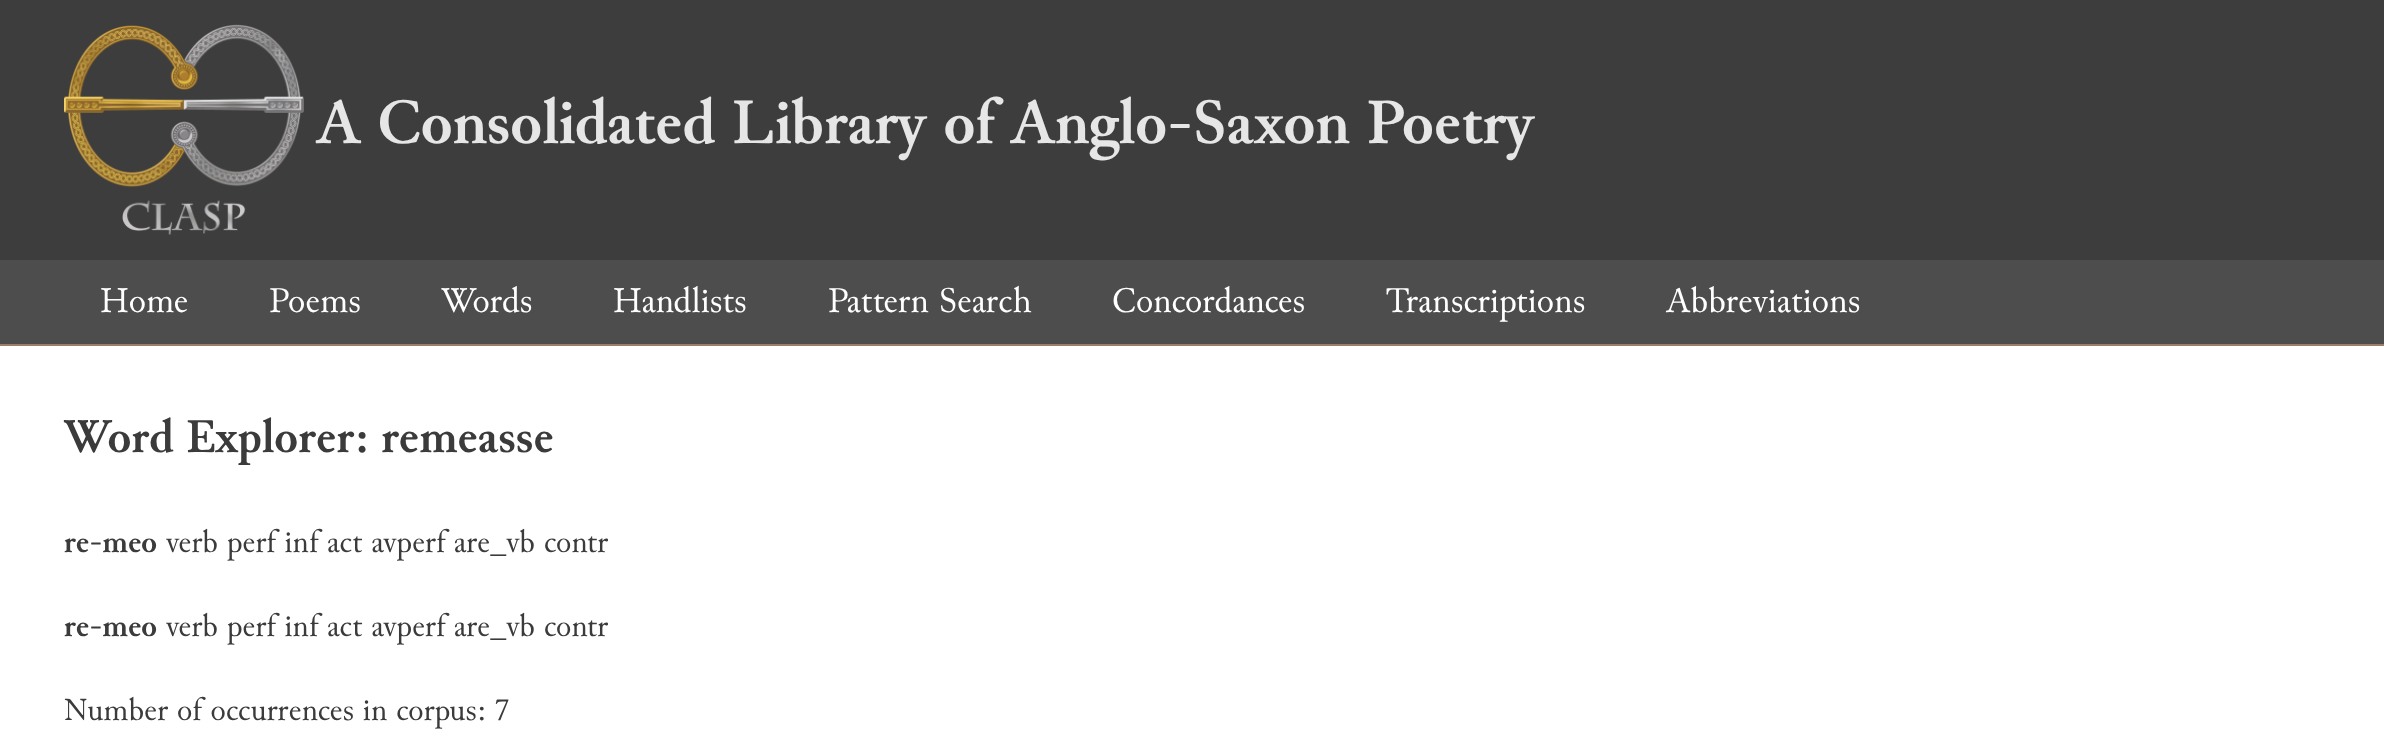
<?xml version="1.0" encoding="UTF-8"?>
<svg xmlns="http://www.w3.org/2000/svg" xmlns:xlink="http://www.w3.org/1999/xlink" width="2384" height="729">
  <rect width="100%" height="100%" fill="#ffffff" />
  <rect width="2384" height="260" fill="#3d3d3d" />
  <image x="64" y="24" width="240" height="211" xlink:href="image1.png" />
  <rect y="260" width="2384" height="84" fill="#4d4d4d" />
  <rect y="344" width="2384" height="2" fill="#9c7e68" />
  <text x="317" y="143" style="font-family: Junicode; font-size: 64px; font-weight: bold; fill: #e6e6e6">A Consolidated Library of Anglo-Saxon Poetry</text>
  <text x="100" y="312" style="font-family: Junicode; font-size: 36px; fill: #ffffff">Home</text>
  <text x="269" y="312" style="font-family: Junicode; font-size: 36px; fill: #ffffff">Poems</text>
  <text x="441" y="312" style="font-family: Junicode; font-size: 36px; fill: #ffffff">Words</text>
  <text x="613" y="312" style="font-family: Junicode; font-size: 36px; fill: #ffffff">Handlists</text>
  <text x="828" y="312" style="font-family: Junicode; font-size: 36px; fill: #ffffff">Pattern Search</text>
  <text x="1112" y="312" style="font-family: Junicode; font-size: 36px; fill: #ffffff">Concordances</text>
  <text x="1386" y="312" style="font-family: Junicode; font-size: 36px; fill: #ffffff">Transcriptions</text>
  <text x="1666" y="312" style="font-family: Junicode; font-size: 36px; fill: #ffffff">Abbreviations</text>
  <text x="64" y="452" style="font-family: Junicode; font-size: 48px; font-weight: bold; fill: #3b3b3b">Word Explorer: remeasse</text>
  <text x="64" y="552" style="font-family: Junicode; font-size: 32px; font-weight: bold; fill: #3b3b3b">re-meo</text>
  <text x="166" y="552" style="font-family: Junicode; font-size: 32px; fill: #3b3b3b">verb perf inf act avperf are_vb contr</text>
  <text x="64" y="636" style="font-family: Junicode; font-size: 32px; font-weight: bold; fill: #3b3b3b">re-meo</text>
  <text x="166" y="636" style="font-family: Junicode; font-size: 32px; fill: #3b3b3b">verb perf inf act avperf are_vb contr</text>
  <text x="64" y="720" style="font-family: Junicode; font-size: 32px; fill: #3b3b3b">Number of occurrences in corpus: 7</text>
</svg>
